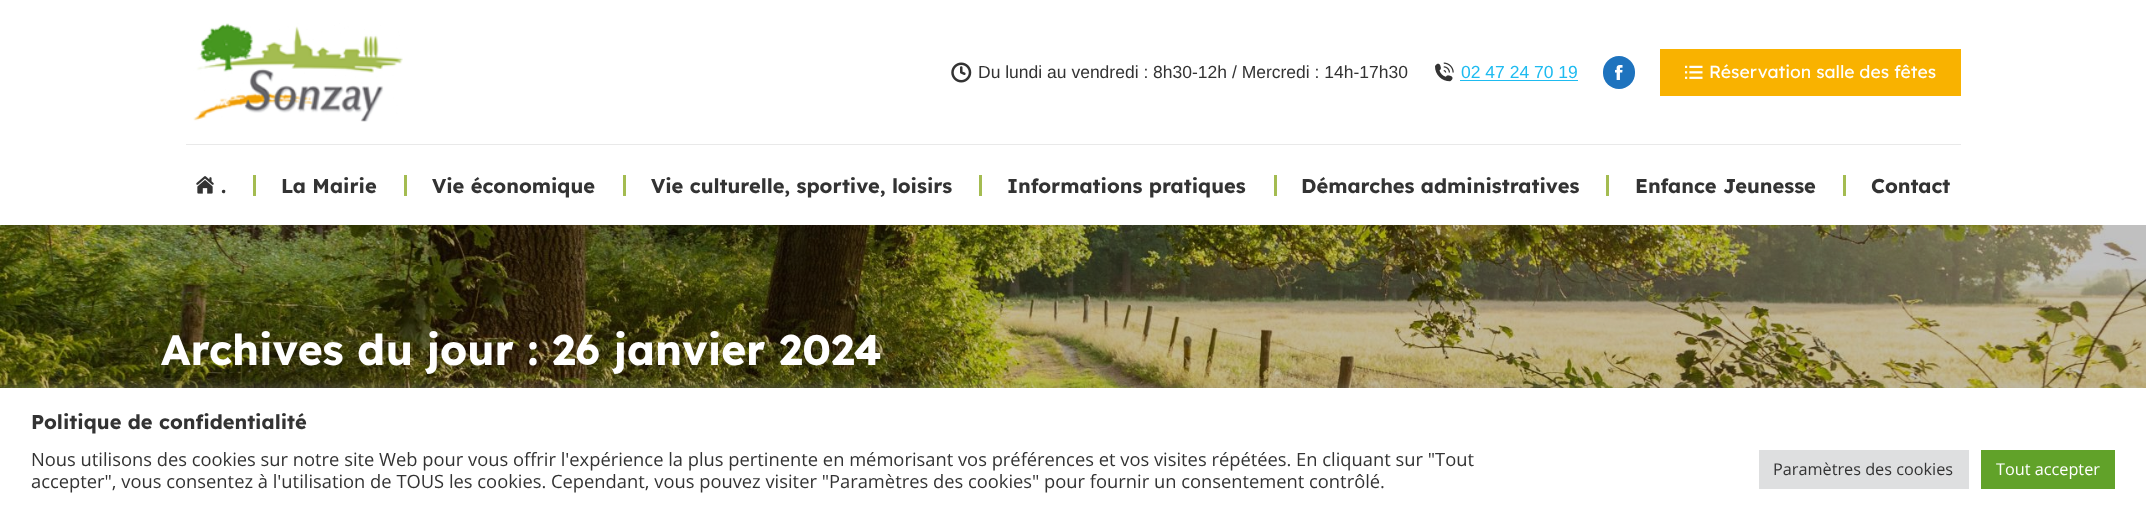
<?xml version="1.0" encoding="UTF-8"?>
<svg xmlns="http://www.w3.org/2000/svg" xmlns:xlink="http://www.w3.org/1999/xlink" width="2146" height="512">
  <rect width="100%" height="100%" fill="#ffffff" />
  <image x="193" y="23" width="210" height="99" xlink:href="image1.png" />
  <image x="951" y="62" width="21" height="21" xlink:href="image2.png" />
  <image x="1435" y="62" width="19" height="20" xlink:href="image3.png" />
  <rect x="1460" y="80" width="118" height="1" fill="#1ebbf0" />
  <rect x="1603" y="56" width="32" height="33" rx="16" fill="#1e73be" />
  <image x="1615" y="65" width="8" height="15" xlink:href="image4.png" />
  <rect x="1660" y="49" width="301" height="47" fill="#f9b200" />
  <image x="1685" y="65" width="18" height="14" xlink:href="image5.png" />
  <rect x="186" y="144" width="1775" height="1" fill="#e9e9e9" />
  <image x="196" y="176" width="18" height="18" xlink:href="image6.png" />
  <rect x="253" y="175" width="3" height="21" fill="#a4bc51" />
  <rect x="404" y="175" width="3" height="21" fill="#a4bc51" />
  <rect x="623" y="175" width="3" height="21" fill="#a4bc51" />
  <rect x="979" y="175" width="3" height="21" fill="#a4bc51" />
  <rect x="1274" y="175" width="3" height="21" fill="#a4bc51" />
  <rect x="1606" y="175" width="3" height="21" fill="#a4bc51" />
  <rect x="1843" y="175" width="3" height="21" fill="#a4bc51" />
  <image x="0" y="225" width="2146" height="163" xlink:href="image7.png" />
  <rect y="386" width="2146" height="125" fill="#acabab" fill-opacity="0.3" filter="blur(6px)" />
  <rect y="388" width="2146" height="124" fill="#ffffff" />
  <rect x="1759" y="450" width="210" height="39" fill="#dedfe0" />
  <rect x="1981" y="450" width="134" height="39" fill="#61a229" />
  <text x="978" y="78" style="font-family: Liberation Sans; font-size: 17.5px; fill: #333333">Du lundi au vendredi : 8h30-12h / Mercredi : 14h-17h30</text>
  <text x="1461" y="78" style="font-family: Liberation Sans; font-size: 17.5px; fill: #1ebbf0">02 47 24 70 19</text>
  <text x="1709" y="78" style="font-family: Lexend; font-size: 17.5px; fill: #ffffff">Réservation salle des fêtes</text>
  <text x="221" y="193" style="font-family: Lexend; font-size: 20px; font-weight: bold; fill: #333333">.</text>
  <text x="281" y="193" style="font-family: Lexend; font-size: 20px; font-weight: bold; fill: #333333">La Mairie</text>
  <text x="432" y="193" style="font-family: Lexend; font-size: 20px; font-weight: bold; fill: #333333">Vie économique</text>
  <text x="651" y="193" style="font-family: Lexend; font-size: 20px; font-weight: bold; fill: #333333">Vie culturelle, sportive, loisirs</text>
  <text x="1007" y="193" style="font-family: Lexend; font-size: 20px; font-weight: bold; fill: #333333">Informations pratiques</text>
  <text x="1301" y="193" style="font-family: Lexend; font-size: 20px; font-weight: bold; fill: #333333">Démarches administratives</text>
  <text x="1635" y="193" style="font-family: Lexend; font-size: 20px; font-weight: bold; fill: #333333">Enfance Jeunesse</text>
  <text x="1871" y="193" style="font-family: Lexend; font-size: 20px; font-weight: bold; fill: #333333">Contact</text>
  <text x="161" y="365" style="font-family: Lexend; font-size: 42.5px; font-weight: bold; fill: #ffffff">Archives du jour : 26 janvier 2024</text>
  <text x="31" y="429" style="font-family: Lexend; font-size: 20px; font-weight: bold; fill: #333333">Politique de confidentialité</text>
  <text x="31" y="466" style="font-family: Open Sans; font-size: 18.33px; fill: #333333">Nous utilisons des cookies sur notre site Web pour vous offrir l'expérience la plus pertinente en mémorisant vos préférences et vos visites répétées. En cliquant sur "Tout</text>
  <text x="31" y="488" style="font-family: Open Sans; font-size: 18.33px; fill: #333333">accepter", vous consentez à l'utilisation de TOUS les cookies. Cependant, vous pouvez visiter "Paramètres des cookies" pour fournir un consentement contrôlé.</text>
  <text x="1773" y="475" style="font-family: Open Sans; font-size: 16.25px; fill: #333333">Paramètres des cookies</text>
  <text x="1996" y="475" style="font-family: Open Sans; font-size: 16.25px; fill: #ffffff">Tout accepter</text>
</svg>
